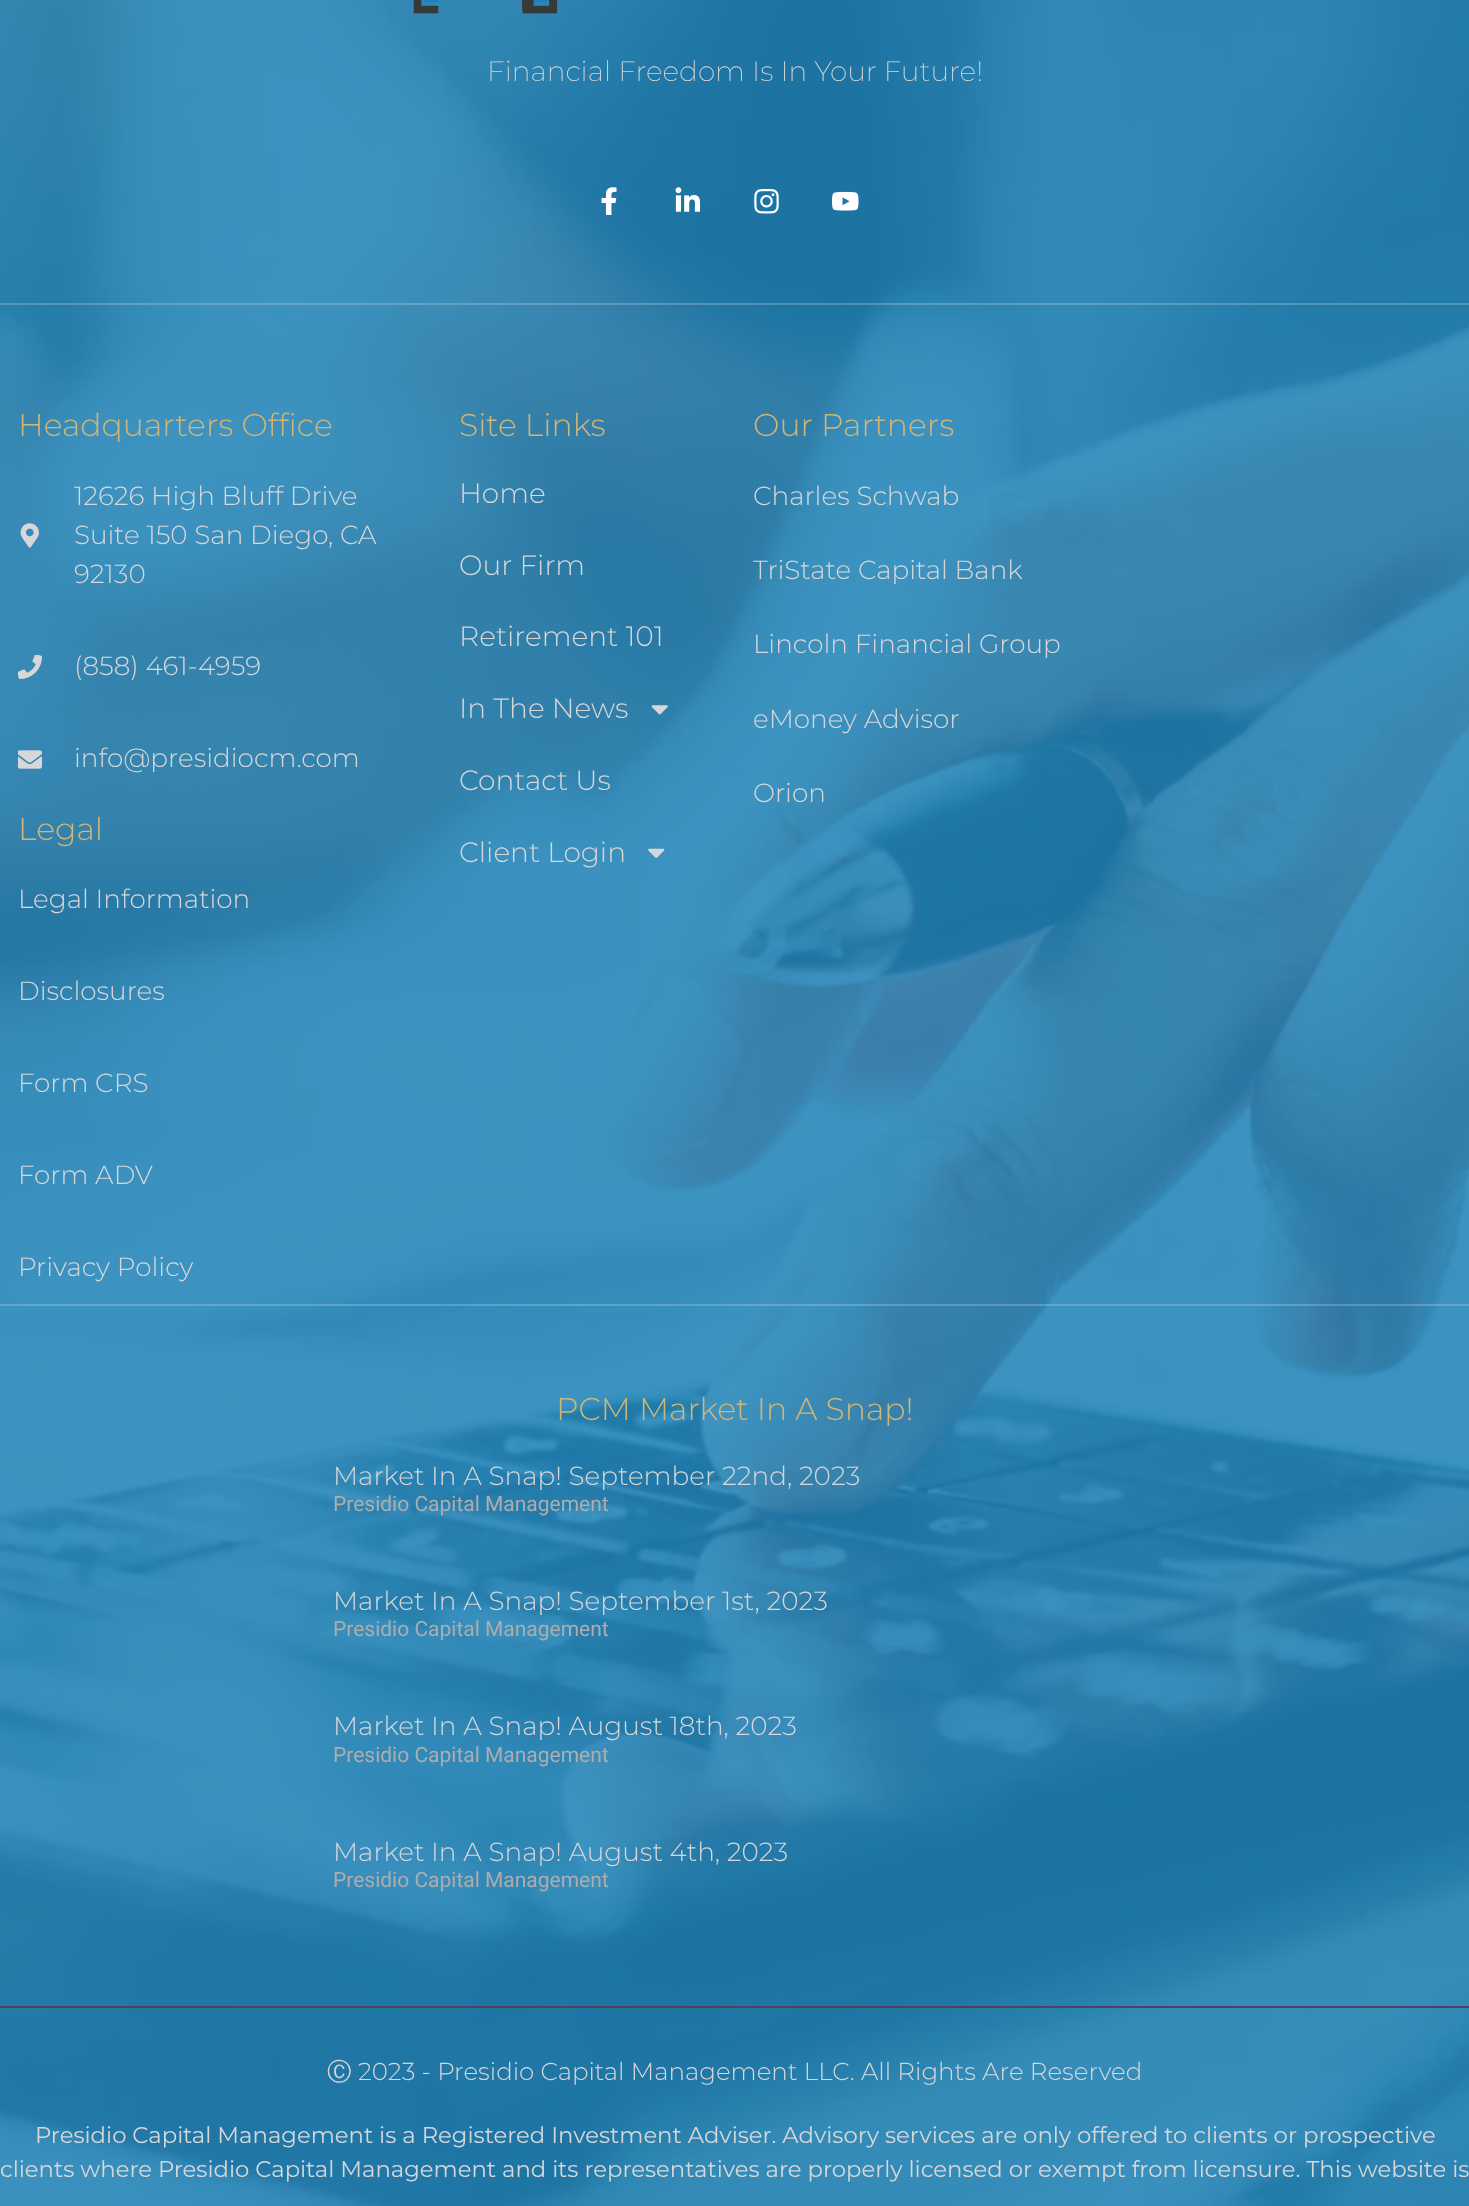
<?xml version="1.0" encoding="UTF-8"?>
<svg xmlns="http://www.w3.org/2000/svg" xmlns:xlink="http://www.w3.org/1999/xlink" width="1469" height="2206">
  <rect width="100%" height="100%" fill="#ffffff" />
  <image x="0" y="0" width="1469" height="2206" xlink:href="image1.png" />
  <rect y="303" width="1469" height="2" fill="#ffffff" fill-opacity="0.2" />
  <image x="413" y="0" width="145" height="14" xlink:href="image2.png" />
  <image x="601" y="187" width="16" height="28" xlink:href="image3.png" />
  <image x="675" y="187" width="25" height="25" xlink:href="image4.png" />
  <image x="754" y="189" width="25" height="25" xlink:href="image5.png" />
  <image x="832" y="191" width="27" height="20" xlink:href="image6.png" />
  <image x="20" y="523" width="19" height="25" xlink:href="image7.png" />
  <image x="18" y="655" width="24" height="24" xlink:href="image8.png" />
  <image x="18" y="750" width="24" height="19" xlink:href="image9.png" />
  <image x="651" y="705" width="17" height="10" xlink:href="image10.png" />
  <image x="648" y="848" width="17" height="10" xlink:href="image11.png" />
  <rect y="1304" width="1469" height="2" fill="#ffffff" fill-opacity="0.2" />
  <rect y="2006" width="1469" height="2" fill="#4b445a" />
  <text x="487" y="81" style="font-family: Montserrat; font-size: 28px; font-weight: 200; fill: #d7d7d9">Financial Freedom Is In Your Future!</text>
  <text x="18" y="436" style="font-family: Montserrat; font-size: 31.5px; font-weight: 300; fill: #d3b574">Headquarters Office</text>
  <text x="74" y="505" style="font-family: Montserrat; font-size: 26.25px; font-weight: 300; fill: #d7d7d9">12626 High Bluff Drive</text>
  <text x="74" y="544" style="font-family: Montserrat; font-size: 26.25px; font-weight: 300; fill: #d7d7d9">Suite 150 San Diego, CA</text>
  <text x="74" y="583" style="font-family: Montserrat; font-size: 26.25px; font-weight: 300; fill: #d7d7d9">92130</text>
  <text x="74" y="675" style="font-family: Montserrat; font-size: 26.25px; font-weight: 300; fill: #d7d7d9">(858) 461-4959</text>
  <text x="74" y="767" style="font-family: Montserrat; font-size: 26.25px; font-weight: 300; fill: #d7d7d9">info@presidiocm.com</text>
  <text x="18" y="840" style="font-family: Montserrat; font-size: 31.5px; font-weight: 300; fill: #d3b574">Legal</text>
  <text x="18" y="908" style="font-family: Montserrat; font-size: 26.25px; font-weight: 300; fill: #d7d7d9">Legal Information</text>
  <text x="18" y="1000" style="font-family: Montserrat; font-size: 26.25px; font-weight: 300; fill: #d7d7d9">Disclosures</text>
  <text x="18" y="1092" style="font-family: Montserrat; font-size: 26.25px; font-weight: 300; fill: #d7d7d9">Form CRS</text>
  <text x="18" y="1184" style="font-family: Montserrat; font-size: 26.25px; font-weight: 300; fill: #d7d7d9">Form ADV</text>
  <text x="18" y="1276" style="font-family: Montserrat; font-size: 26.25px; font-weight: 300; fill: #d7d7d9">Privacy Policy</text>
  <text x="459" y="436" style="font-family: Montserrat; font-size: 31.5px; font-weight: 300; fill: #d3b574">Site Links</text>
  <text x="459" y="503" style="font-family: Montserrat; font-size: 28px; font-weight: 300; fill: #d7d7d9">Home</text>
  <text x="459" y="575" style="font-family: Montserrat; font-size: 28px; font-weight: 300; fill: #d7d7d9">Our Firm</text>
  <text x="459" y="646" style="font-family: Montserrat; font-size: 28px; font-weight: 300; fill: #d7d7d9">Retirement 101</text>
  <text x="459" y="718" style="font-family: Montserrat; font-size: 28px; font-weight: 300; fill: #d7d7d9">In The News</text>
  <text x="459" y="790" style="font-family: Montserrat; font-size: 28px; font-weight: 300; fill: #d7d7d9">Contact Us</text>
  <text x="459" y="862" style="font-family: Montserrat; font-size: 28px; font-weight: 300; fill: #d7d7d9">Client Login</text>
  <text x="753" y="436" style="font-family: Montserrat; font-size: 31.5px; font-weight: 300; fill: #d3b574">Our Partners</text>
  <text x="753" y="505" style="font-family: Montserrat; font-size: 26.25px; font-weight: 300; fill: #d7d7d9">Charles Schwab</text>
  <text x="753" y="579" style="font-family: Montserrat; font-size: 26.25px; font-weight: 300; fill: #d7d7d9">TriState Capital Bank</text>
  <text x="753" y="653" style="font-family: Montserrat; font-size: 26.25px; font-weight: 300; fill: #d7d7d9">Lincoln Financial Group</text>
  <text x="753" y="728" style="font-family: Montserrat; font-size: 26.25px; font-weight: 300; fill: #d7d7d9">eMoney Advisor</text>
  <text x="753" y="802" style="font-family: Montserrat; font-size: 26.25px; font-weight: 300; fill: #d7d7d9">Orion</text>
  <text x="556" y="1420" style="font-family: Montserrat; font-size: 31.5px; font-weight: 300; fill: #d3b574">PCM Market In A Snap!</text>
  <text x="333" y="1485" style="font-family: Montserrat; font-size: 26.25px; font-weight: 300; fill: #d7d7d9">Market In A Snap! September 22nd, 2023</text>
  <text x="333" y="1511" style="font-family: Roboto; font-size: 21px; fill: #adadad">Presidio Capital Management</text>
  <text x="333" y="1610" style="font-family: Montserrat; font-size: 26.25px; font-weight: 300; fill: #d7d7d9">Market In A Snap! September 1st, 2023</text>
  <text x="333" y="1636" style="font-family: Roboto; font-size: 21px; fill: #adadad">Presidio Capital Management</text>
  <text x="333" y="1735" style="font-family: Montserrat; font-size: 26.25px; font-weight: 300; fill: #d7d7d9">Market In A Snap! August 18th, 2023</text>
  <text x="333" y="1762" style="font-family: Roboto; font-size: 21px; fill: #adadad">Presidio Capital Management</text>
  <text x="333" y="1861" style="font-family: Montserrat; font-size: 26.25px; font-weight: 300; fill: #d7d7d9">Market In A Snap! August 4th, 2023</text>
  <text x="333" y="1887" style="font-family: Roboto; font-size: 21px; fill: #adadad">Presidio Capital Management</text>
  <text x="327" y="2080" style="font-family: WenQuanYi Zen Hei; font-size: 24.5px; font-weight: 500; fill: #d7d7d9">Ⓒ</text>
  <text x="358" y="2080" style="font-family: Montserrat; font-size: 24.5px; font-weight: 300; fill: #d7d7d9">2023 - Presidio Capital Management LLC. All Rights Are Reserved</text>
  <text x="35" y="2143" style="font-family: Montserrat; font-size: 22.75px; fill: #d7d7d9">Presidio Capital Management is a Registered Investment Adviser. Advisory services are only offered to clients or prospective</text>
  <text x="0" y="2177" style="font-family: Montserrat; font-size: 22.75px; fill: #d7d7d9">clients where Presidio Capital Management and its representatives are properly licensed or exempt from licensure. This website is</text>
</svg>
